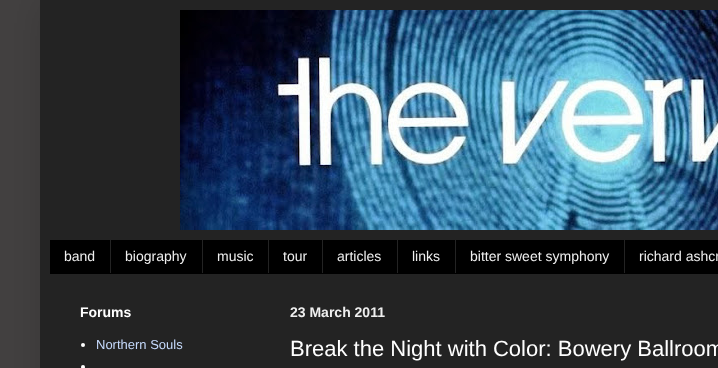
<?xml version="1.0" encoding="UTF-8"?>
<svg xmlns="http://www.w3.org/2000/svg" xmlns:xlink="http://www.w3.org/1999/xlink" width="718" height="368">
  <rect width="100%" height="100%" fill="#434141" />
  <rect x="40" width="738" height="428" fill="#000000" fill-opacity="0.15" filter="blur(20px)" />
  <rect x="40" width="678" height="368" fill="#232323" />
  <image x="180" y="10" width="538" height="220" xlink:href="image1.png" />
  <rect x="50" y="240" width="668" height="34" fill="#000000" />
  <rect x="110" y="240" width="1" height="33" fill="#232323" />
  <rect x="202" y="240" width="1" height="33" fill="#232323" />
  <rect x="268" y="240" width="1" height="33" fill="#232323" />
  <rect x="322" y="240" width="1" height="33" fill="#232323" />
  <rect x="397" y="240" width="1" height="33" fill="#232323" />
  <rect x="455" y="240" width="1" height="33" fill="#232323" />
  <rect x="624" y="240" width="1" height="33" fill="#232323" />
  <circle cx="83" cy="345" r="2" fill="#ffffff" />
  <circle cx="83" cy="367" r="2" fill="#ffffff" />
  <text x="64" y="261" style="font-family: Liberation Sans; font-size: 14px; fill: #efefef">band</text>
  <text x="125" y="261" style="font-family: Liberation Sans; font-size: 14px; fill: #efefef">biography</text>
  <text x="217" y="261" style="font-family: Liberation Sans; font-size: 14px; fill: #efefef">music</text>
  <text x="283" y="261" style="font-family: Liberation Sans; font-size: 14px; fill: #efefef">tour</text>
  <text x="337" y="261" style="font-family: Liberation Sans; font-size: 14px; fill: #efefef">articles</text>
  <text x="412" y="261" style="font-family: Liberation Sans; font-size: 14px; fill: #efefef">links</text>
  <text x="470" y="261" style="font-family: Liberation Sans; font-size: 14px; fill: #efefef">bitter sweet symphony</text>
  <text x="639" y="261" style="font-family: Liberation Sans; font-size: 14px; fill: #efefef">richard ashcr</text>
  <text x="80" y="317" style="font-family: Liberation Sans; font-size: 14px; font-weight: bold; fill: #ffffff">Forums</text>
  <text x="96" y="349" style="font-family: Liberation Sans; font-size: 13px; fill: #c6dafc">Northern Souls</text>
  <text x="290" y="317" style="font-family: Liberation Sans; font-size: 14px; font-weight: bold; fill: #efefef">23 March 2011</text>
  <text x="290" y="356" style="font-family: Liberation Sans; font-size: 22px; fill: #ffffff">Break the Night with Color: Bowery Ballroom</text>
</svg>
